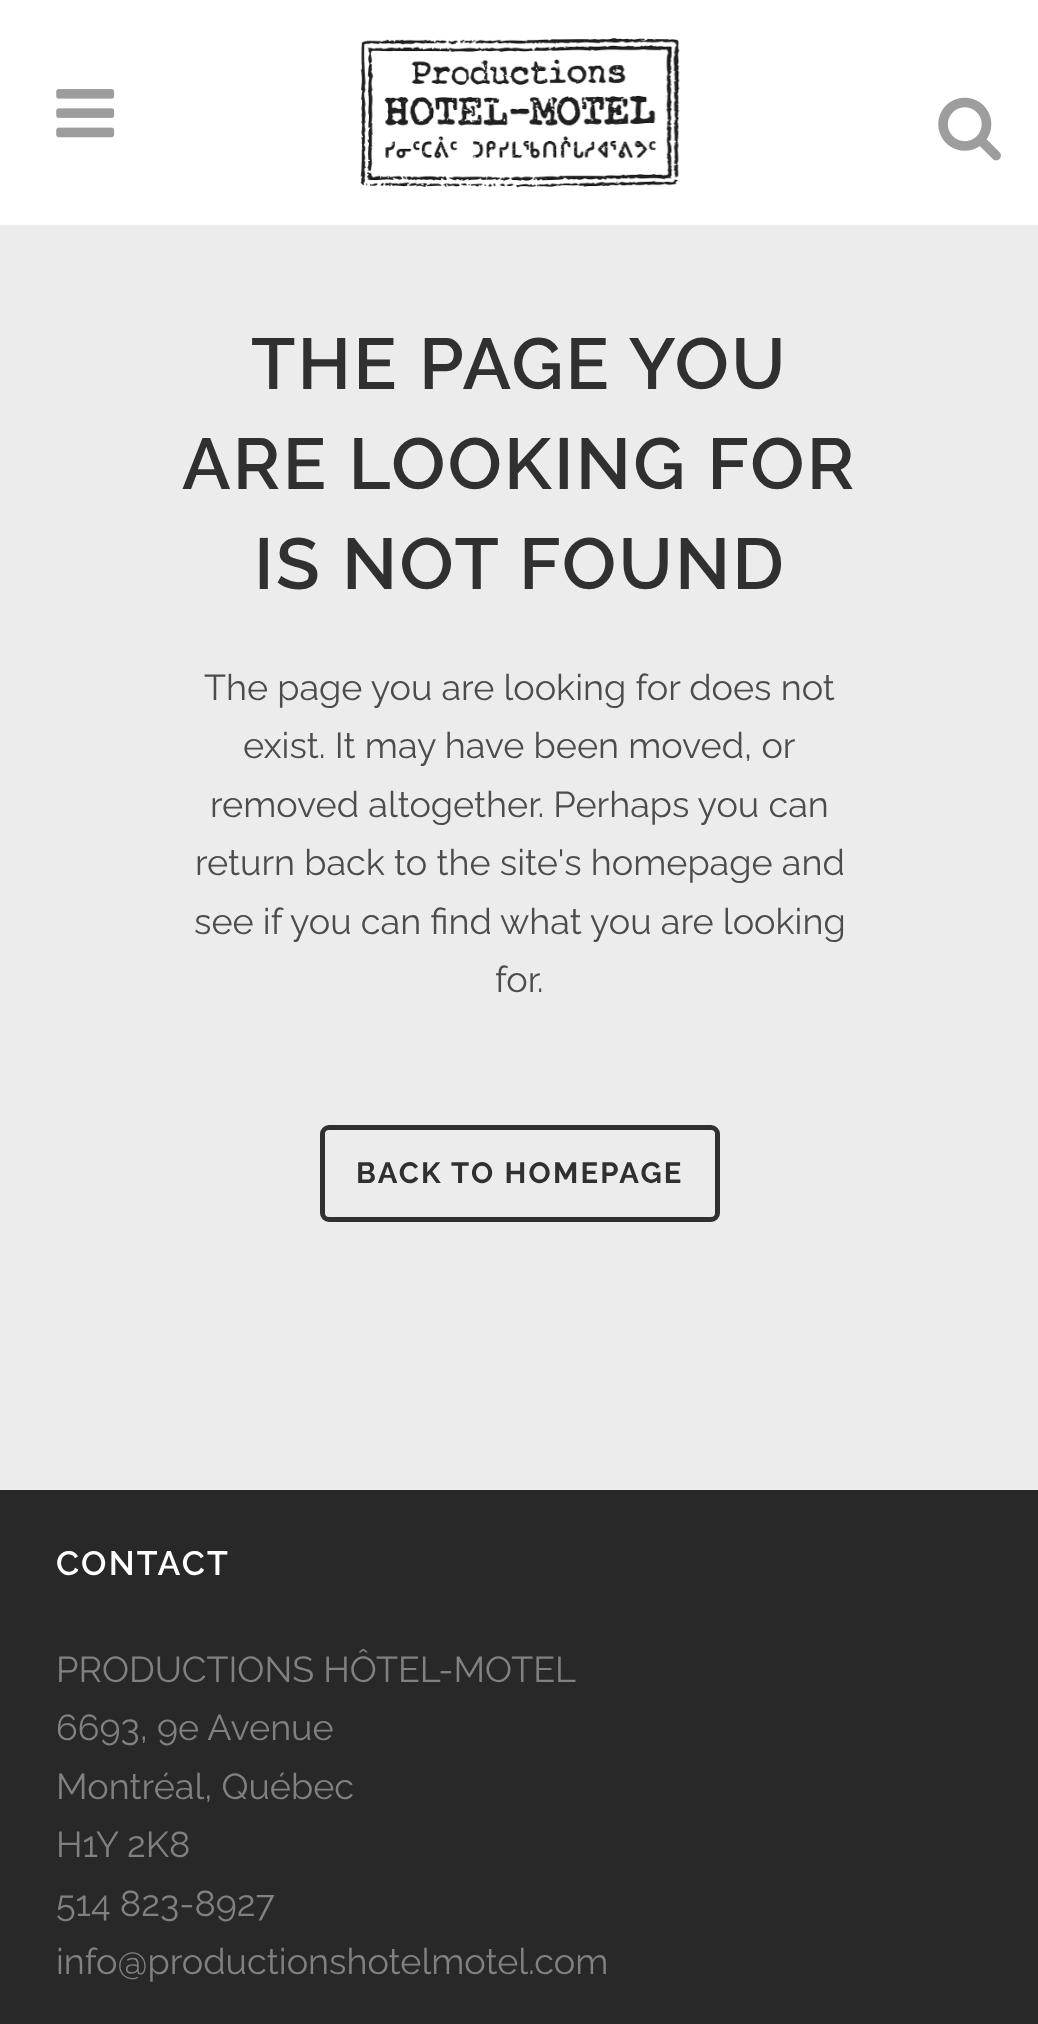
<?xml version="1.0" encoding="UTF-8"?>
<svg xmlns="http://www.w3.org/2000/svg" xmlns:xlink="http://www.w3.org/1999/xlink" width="1038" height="2024">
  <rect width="100%" height="100%" fill="#ececec" />
  <rect width="1038" height="225" fill="#ffffff" />
  <image x="56" y="89" width="59" height="49" xlink:href="image1.png" />
  <image x="360" y="38" width="320" height="150" xlink:href="image2.png" />
  <image x="938" y="97" width="63" height="64" xlink:href="image3.png" />
  <rect x="322.5" y="1127.5" width="395" height="92" rx="6.5" fill="none" stroke="#303030" stroke-width="5" />
  <rect y="1490" width="1038" height="534" fill="#282828" />
  <text x="251" y="389" style="font-family: Raleway; font-size: 72px; font-weight: 600; letter-spacing: 2.25px; fill: #303030">THE PAGE YOU</text>
  <text x="182" y="489" style="font-family: Raleway; font-size: 72px; font-weight: 600; letter-spacing: 2.25px; fill: #303030">ARE LOOKING FOR</text>
  <text x="254" y="589" style="font-family: Raleway; font-size: 72px; font-weight: 600; letter-spacing: 2.25px; fill: #303030">IS NOT FOUND</text>
  <text x="204" y="700" style="font-family: Raleway; font-size: 36px; fill: #4c4c4c">The page you are looking for does not</text>
  <text x="243" y="758" style="font-family: Raleway; font-size: 36px; fill: #4c4c4c">exist. It may have been moved, or</text>
  <text x="210" y="817" style="font-family: Raleway; font-size: 36px; fill: #4c4c4c">removed altogether. Perhaps you can</text>
  <text x="195" y="875" style="font-family: Raleway; font-size: 36px; fill: #4c4c4c">return back to the site's homepage and</text>
  <text x="194" y="934" style="font-family: Raleway; font-size: 36px; fill: #4c4c4c">see if you can find what you are looking</text>
  <text x="495" y="992" style="font-family: Raleway; font-size: 36px; fill: #4c4c4c">for.</text>
  <text x="356" y="1183" style="font-family: Raleway; font-size: 29.25px; font-weight: bold; letter-spacing: 2.25px; fill: #303030">BACK TO HOMEPAGE</text>
  <text x="56" y="1575" style="font-family: Raleway; font-size: 33.75px; font-weight: 600; letter-spacing: 2.25px; fill: #ffffff">CONTACT</text>
  <text x="56" y="1682" style="font-family: Raleway; font-size: 36px; fill: #818181">PRODUCTIONS HÔTEL-MOTEL</text>
  <text x="56" y="1740" style="font-family: Raleway; font-size: 36px; fill: #818181">6693, 9e Avenue</text>
  <text x="56" y="1799" style="font-family: Raleway; font-size: 36px; fill: #818181">Montréal, Québec</text>
  <text x="56" y="1857" style="font-family: Raleway; font-size: 36px; fill: #818181">H1Y 2K8</text>
  <text x="56" y="1916" style="font-family: Raleway; font-size: 36px; fill: #818181">514 823-8927</text>
  <text x="56" y="1974" style="font-family: Raleway; font-size: 36px; fill: #818181">info@productionshotelmotel.com</text>
</svg>
